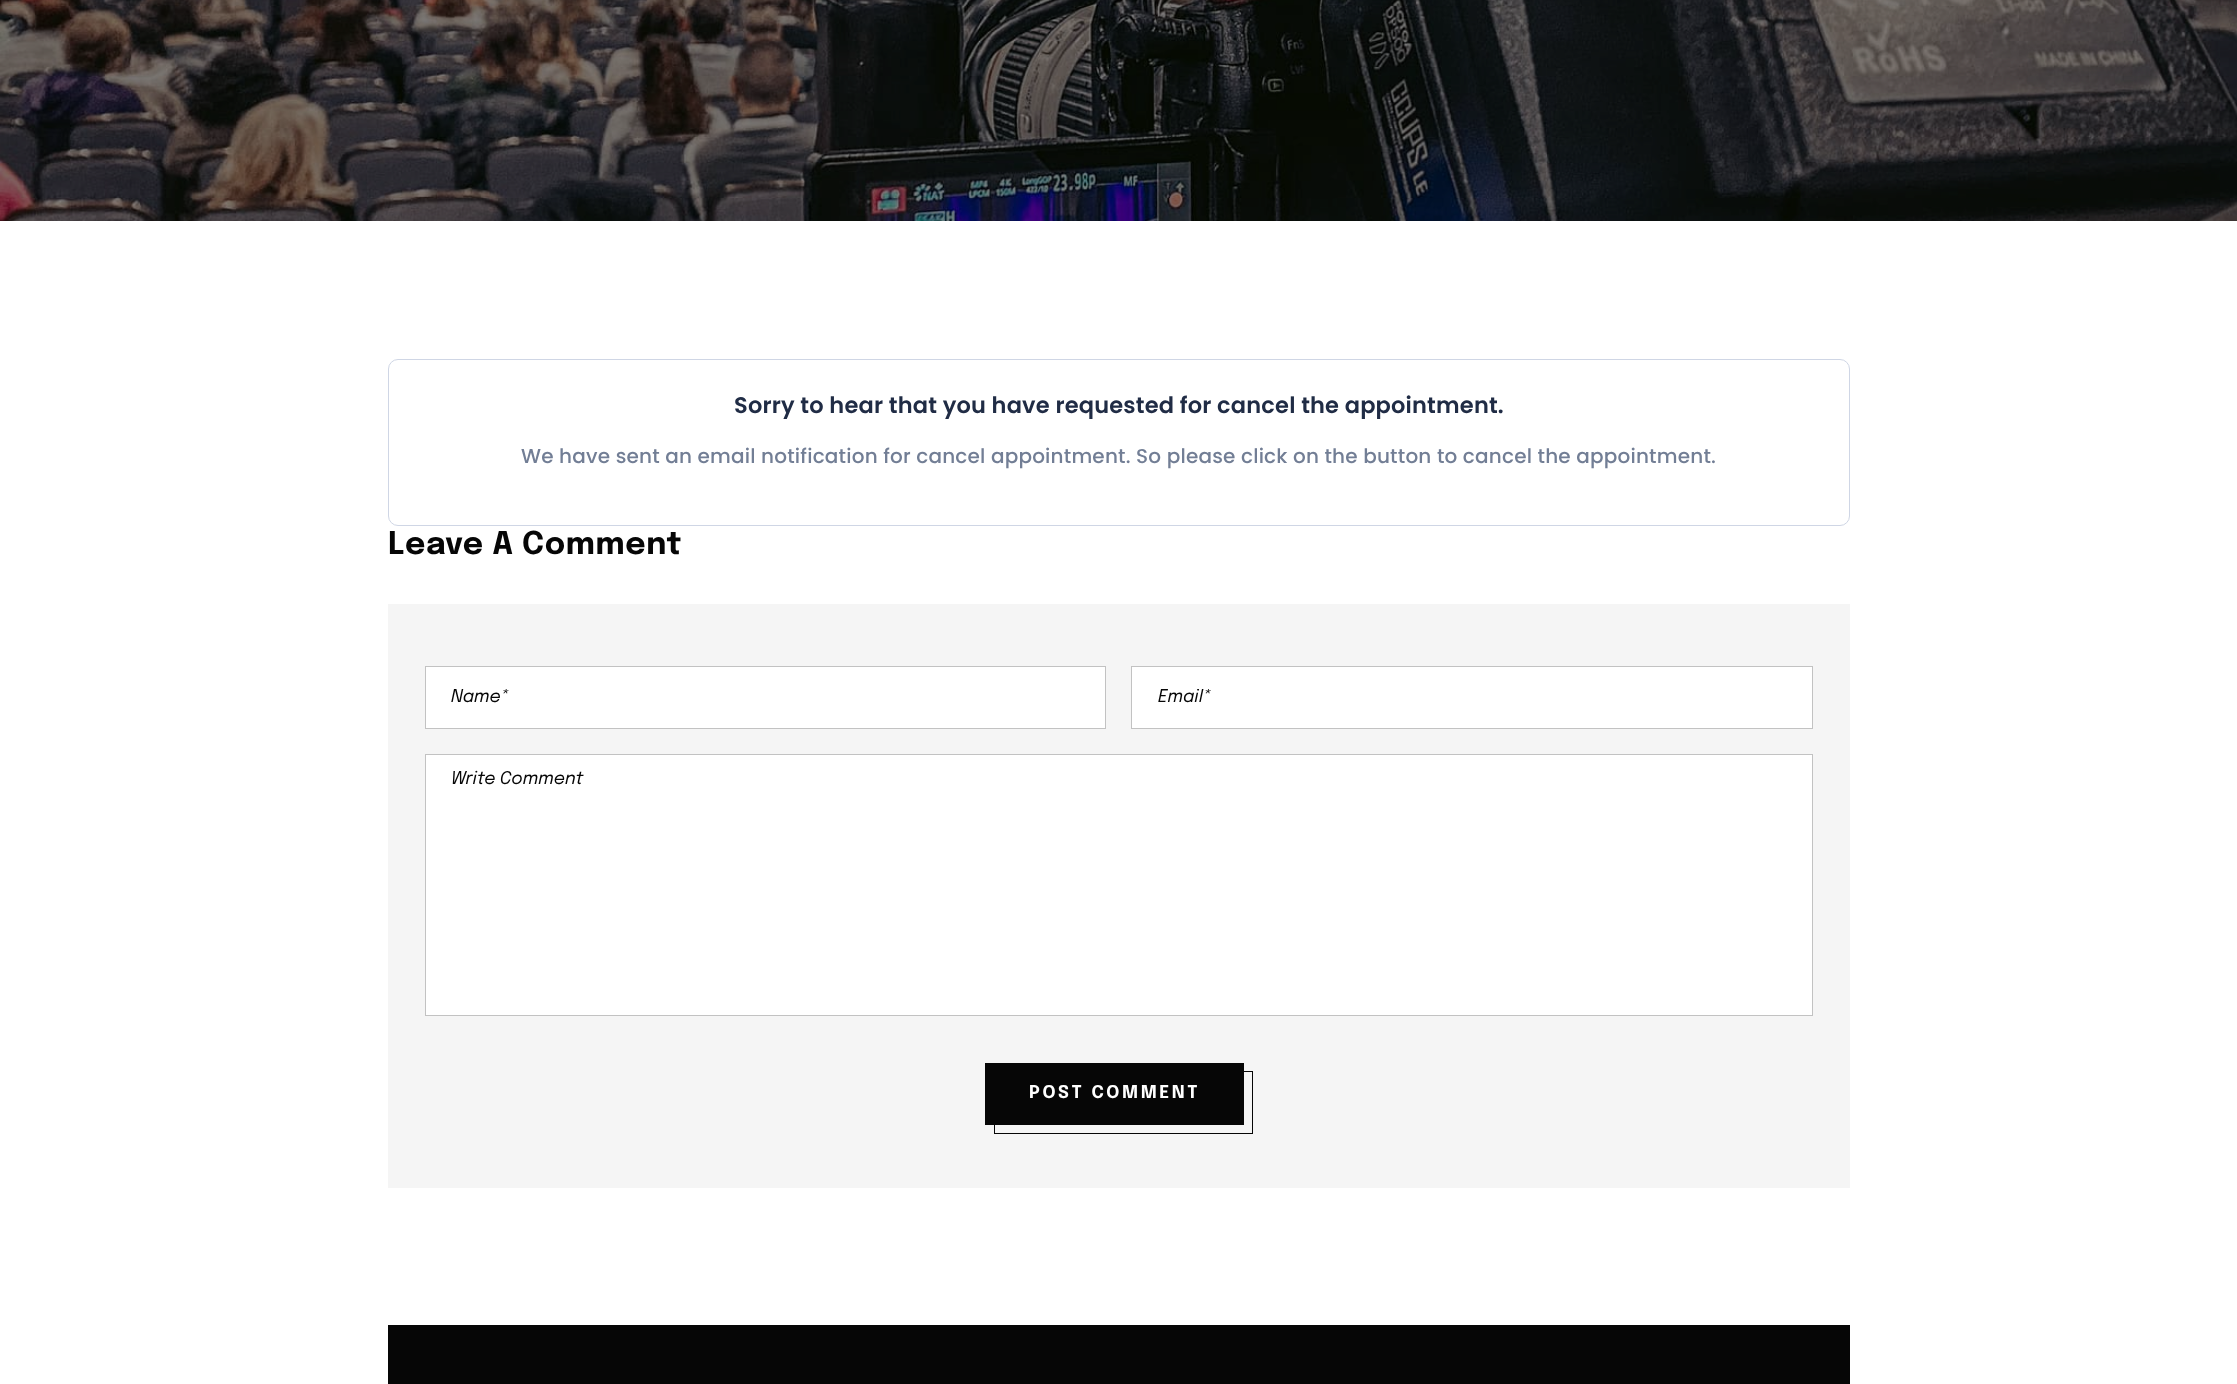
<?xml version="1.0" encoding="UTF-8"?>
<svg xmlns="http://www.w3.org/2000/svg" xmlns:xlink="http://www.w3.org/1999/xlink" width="2237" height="1384">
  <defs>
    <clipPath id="clip1"><rect x="1158" y="689" width="628" height="17" /></clipPath>
  </defs>
  <rect width="100%" height="100%" fill="#ffffff" />
  <image x="0" y="0" width="2237" height="221" xlink:href="image1.png" />
  <rect x="388.5" y="359.5" width="1461" height="166" rx="9.5" fill="none" stroke="#cfd6e5" />
  <rect x="388" y="604" width="1462" height="584" fill="#f5f5f5" />
  <rect x="425.5" y="666.5" width="680" height="62" fill="#ffffff" stroke="#c2c2c2" />
  <rect x="1131.5" y="666.5" width="681" height="62" fill="#ffffff" stroke="#c2c2c2" />
  <rect x="425.5" y="754.5" width="1387" height="261" fill="#ffffff" stroke="#c2c2c2" />
  <rect x="985" y="1063" width="259" height="62" fill="#060606" />
  <rect x="994.5" y="1071.5" width="258" height="62" fill="none" stroke="#060606" />
  <rect x="388" y="1325" width="1462" height="59" fill="#060606" />
  <text x="734" y="413" style="font-family: Poppins; font-size: 22.5px; font-weight: 600; letter-spacing: 0.19px; fill: #202c45">Sorry to hear that you have requested for cancel the appointment.</text>
  <text x="521" y="463" style="font-family: Poppins; font-size: 20px; font-weight: 500; letter-spacing: 0.19px; fill: #727e95">We have sent an email notification for cancel appointment. So please click on the button to cancel the appointment.</text>
  <text x="388" y="554" style="font-family: Epilogue; font-size: 31.25px; font-weight: bold; letter-spacing: 0.6px; fill: #060606">Leave A Comment</text>
  <text x="451" y="702" style="font-family: Epilogue; font-size: 17.5px; font-style: italic; fill: #060606">Name*</text>
  <g clip-path="url(#clip1)">
    <text x="1158" y="702" style="font-family: Epilogue; font-size: 17.5px; font-style: italic; fill: #060606">Email*</text>
  </g>
  <text x="451" y="784" style="font-family: Epilogue; font-size: 17.5px; font-style: italic; fill: #060606">Write Comment</text>
  <text x="1029" y="1098" style="font-family: Epilogue; font-size: 17.5px; font-weight: bold; letter-spacing: 2.6px; fill: #ffffff">POST COMMENT</text>
</svg>
